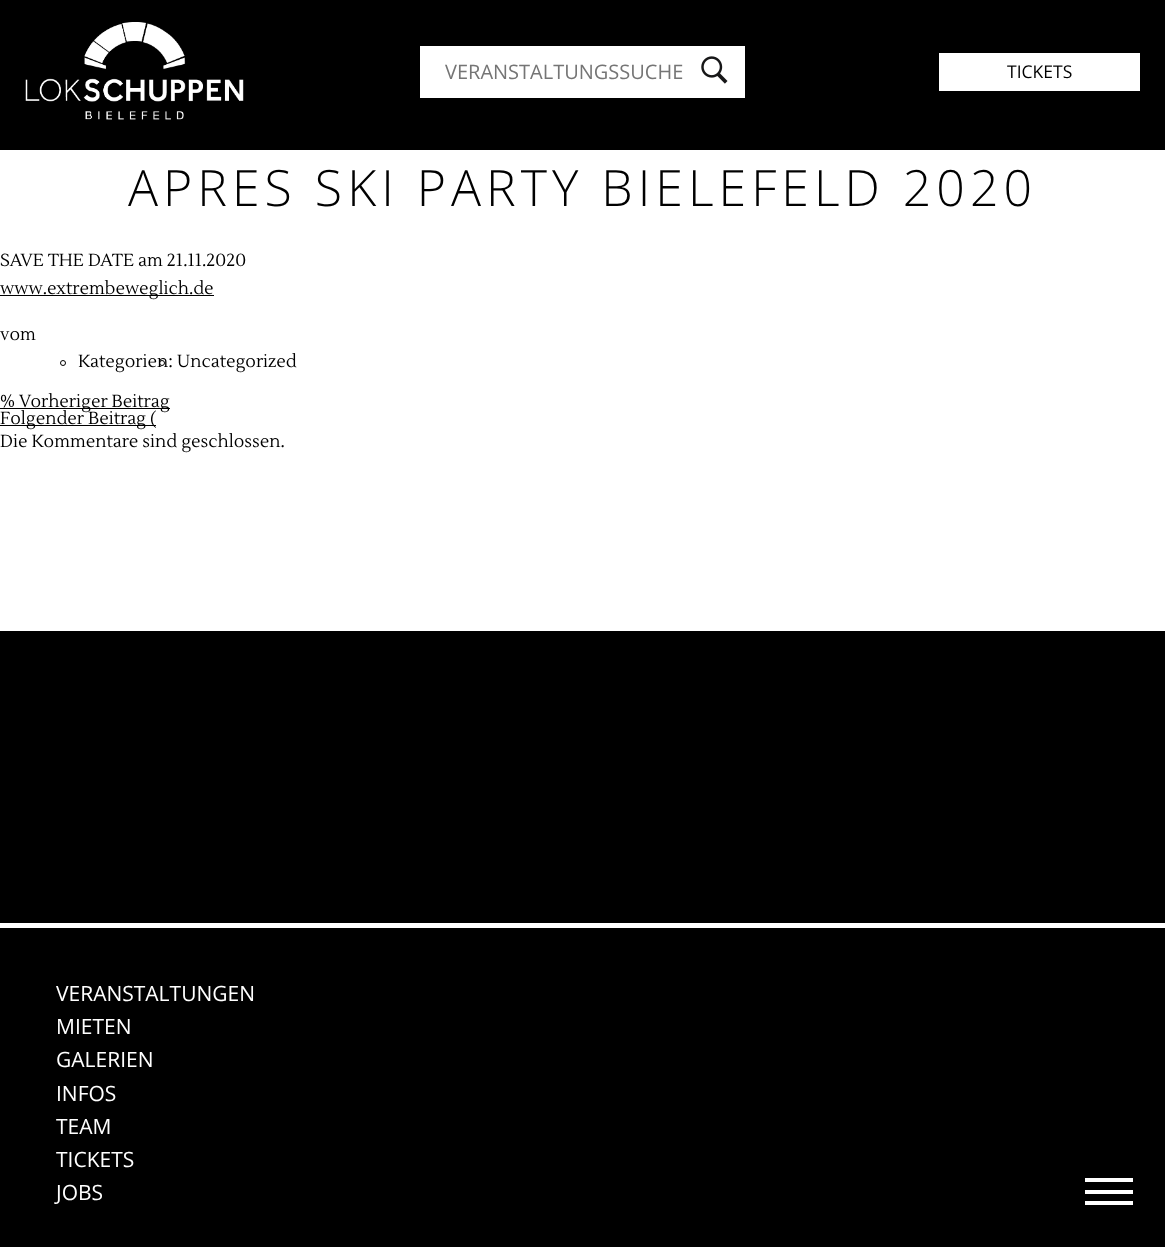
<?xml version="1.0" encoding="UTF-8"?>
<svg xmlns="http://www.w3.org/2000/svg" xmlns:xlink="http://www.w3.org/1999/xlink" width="1165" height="1247">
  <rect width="100%" height="100%" fill="#ffffff" />
  <rect width="1165" height="150" fill="#000000" />
  <image x="25" y="22" width="219" height="98" xlink:href="image1.png" />
  <rect x="420" y="46" width="325" height="52" fill="#ffffff" />
  <image x="701" y="56" width="27" height="28" xlink:href="image2.png" />
  <rect x="939" y="53" width="201" height="38" fill="#ffffff" />
  <rect y="631" width="1165" height="616" fill="#000000" />
  <rect x="1085" y="1178" width="48" height="4" fill="#ffffff" />
  <rect x="1085" y="1190" width="48" height="4" fill="#ffffff" />
  <rect x="1085" y="1201" width="48" height="4" fill="#ffffff" />
  <rect y="295" width="214" height="1" fill="#000000" />
  <circle cx="63" cy="363" r="2.5" fill="none" stroke="#000000" />
  <circle cx="162" cy="363" r="2.5" fill="none" stroke="#000000" />
  <rect y="408" width="170" height="1" fill="#000000" />
  <rect y="425" width="156" height="1" fill="#000000" />
  <rect y="923" width="1165" height="5" fill="#ffffff" />
  <text x="445" y="79" style="font-family: Open Sans; font-size: 20px; fill: #757575">VERANSTALTUNGSSUCHE</text>
  <text x="1007" y="78" style="font-family: Open Sans; font-size: 17.5px; fill: #000000">TICKETS</text>
  <text x="128" y="206" style="font-family: Open Sans; font-size: 50px; font-weight: 300; letter-spacing: 5px; fill: #000000">APRES SKI PARTY BIELEFELD 2020</text>
  <text x="0" y="266" style="font-family: Lustria; font-size: 17.5px; fill: #000000">SAVE THE DATE am 21.11.2020</text>
  <text x="0" y="294" style="font-family: Lustria; font-size: 17.5px; fill: #000000">www.extrembeweglich.de</text>
  <text x="0" y="340" style="font-family: Lustria; font-size: 17.5px; fill: #000000">vom</text>
  <text x="78" y="367" style="font-family: Lustria; font-size: 17.5px; fill: #000000">Kategorien: Uncategorized</text>
  <text x="0" y="407" style="font-family: Lustria; font-size: 17.5px; fill: #000000">% Vorheriger Beitrag</text>
  <text x="0" y="424" style="font-family: Lustria; font-size: 17.5px; fill: #000000">Folgender Beitrag (</text>
  <text x="0" y="447" style="font-family: Lustria; font-size: 17.5px; fill: #000000">Die Kommentare sind geschlossen.</text>
  <text x="56" y="1001" style="font-family: Open Sans; font-size: 21px; fill: #ffffff">VERANSTALTUNGEN</text>
  <text x="56" y="1034" style="font-family: Open Sans; font-size: 21px; fill: #ffffff">MIETEN</text>
  <text x="56" y="1067" style="font-family: Open Sans; font-size: 21px; fill: #ffffff">GALERIEN</text>
  <text x="56" y="1101" style="font-family: Open Sans; font-size: 21px; fill: #ffffff">INFOS</text>
  <text x="56" y="1134" style="font-family: Open Sans; font-size: 21px; fill: #ffffff">TEAM</text>
  <text x="56" y="1167" style="font-family: Open Sans; font-size: 21px; fill: #ffffff">TICKETS</text>
  <text x="56" y="1200" style="font-family: Open Sans; font-size: 21px; fill: #ffffff">JOBS</text>
</svg>
